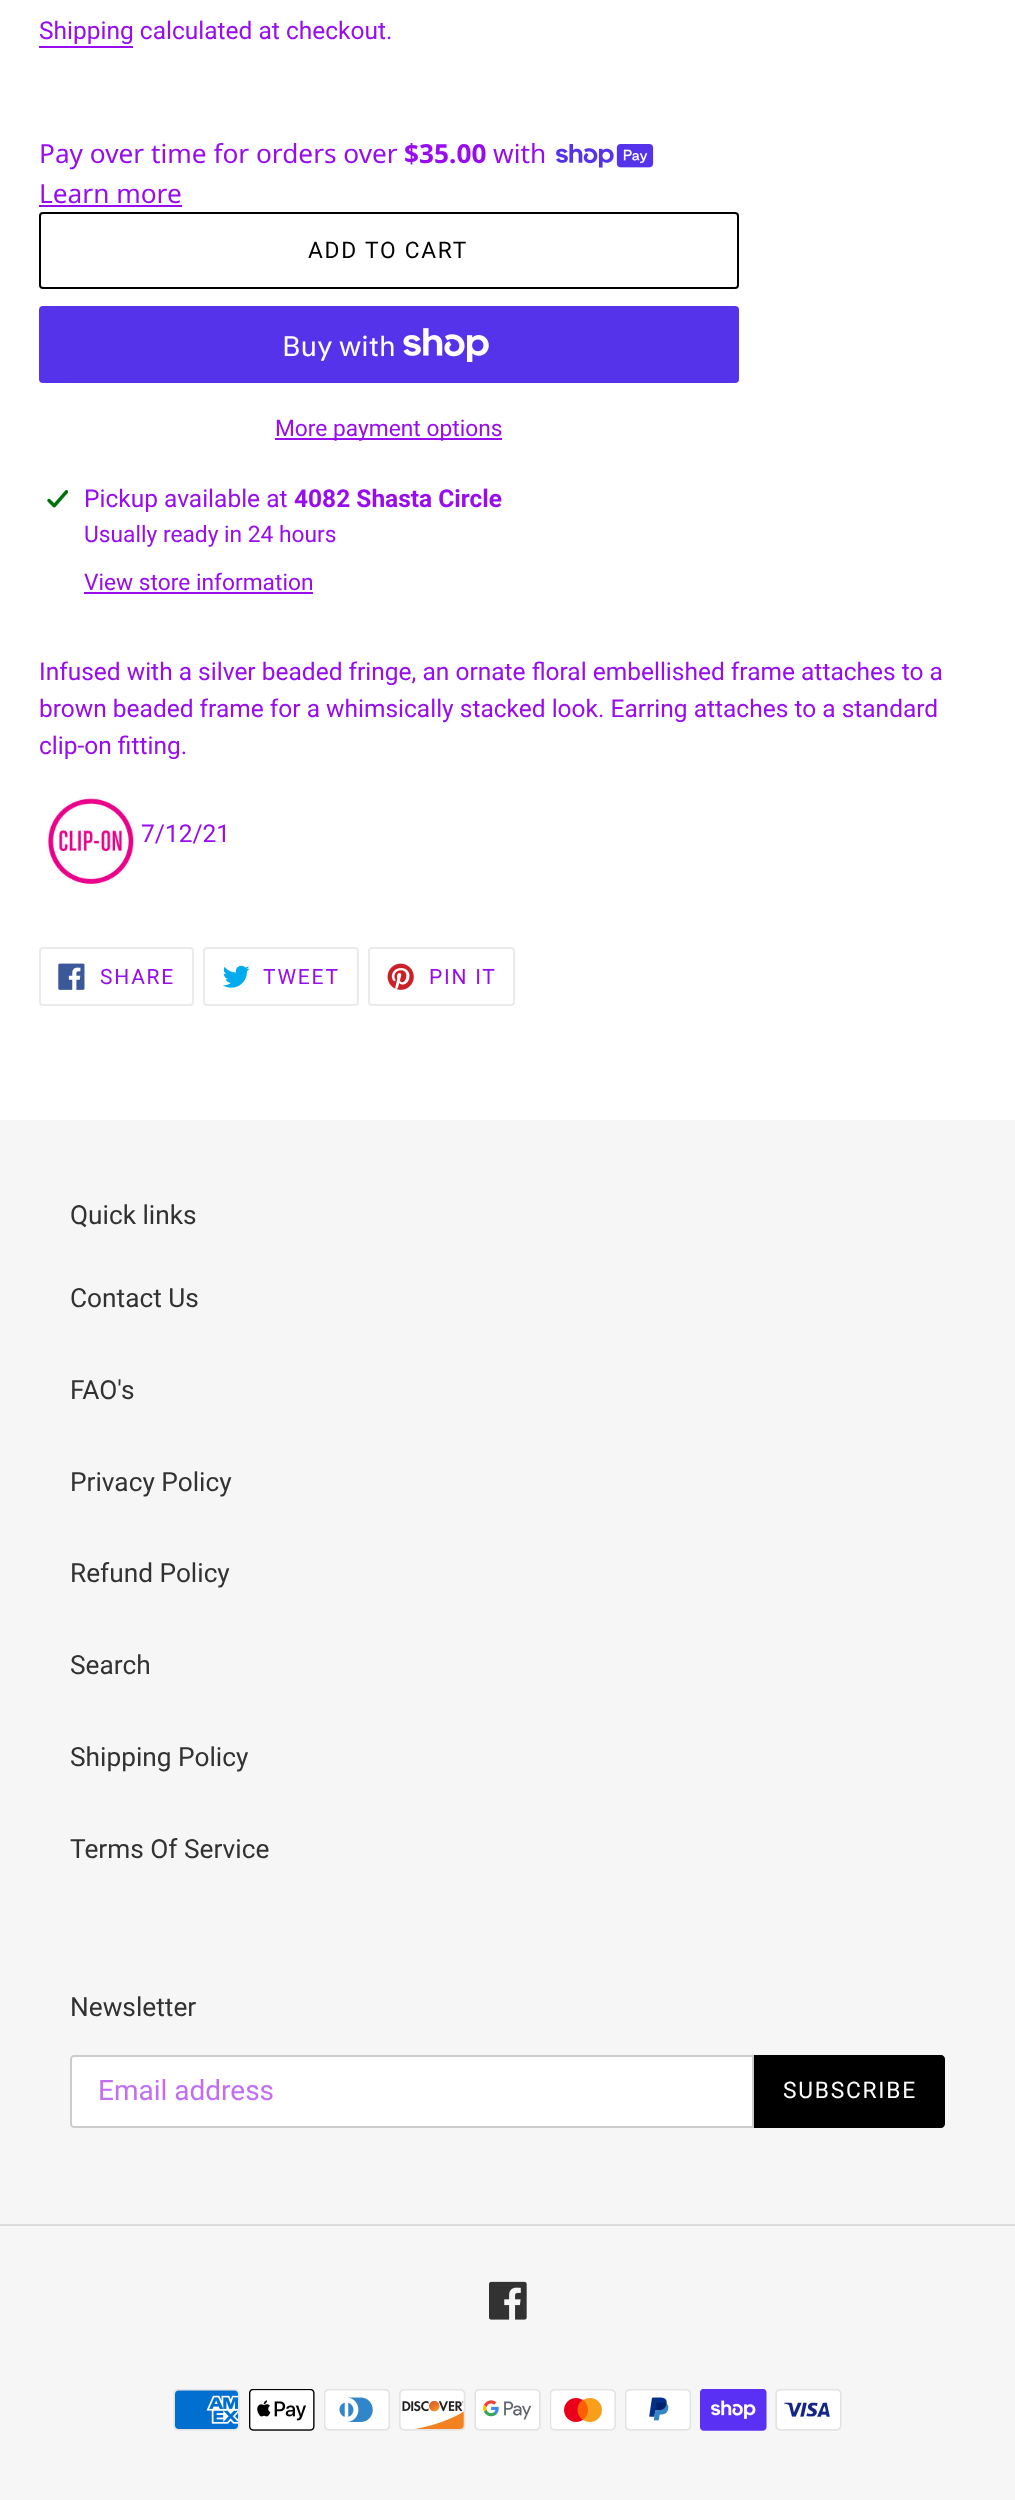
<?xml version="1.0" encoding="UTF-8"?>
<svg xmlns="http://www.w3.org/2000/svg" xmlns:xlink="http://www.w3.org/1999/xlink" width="1015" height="2500">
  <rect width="100%" height="100%" fill="#ffffff" />
  <rect x="39" y="46" width="94" height="2" fill="#970ded" />
  <image x="556" y="144" width="98" height="24" xlink:href="image1.png" />
  <rect x="39" y="205" width="143" height="2" fill="#970ded" />
  <rect x="40" y="213" width="698" height="75" rx="3" fill="none" stroke="#000000" stroke-width="2" />
  <rect x="39" y="306" width="700" height="77" rx="4" fill="#5433eb" />
  <image x="403" y="328" width="86" height="34" xlink:href="image2.png" />
  <rect x="275" y="438" width="227" height="2" fill="#970ded" />
  <image x="47" y="490" width="21" height="18" xlink:href="image3.png" />
  <rect x="84" y="592" width="229" height="2" fill="#970ded" />
  <image x="47" y="798" width="88" height="87" xlink:href="image4.png" />
  <rect x="40" y="948" width="153" height="57" rx="3" fill="none" stroke="#ebebeb" stroke-width="2" />
  <image x="58" y="963" width="27" height="27" xlink:href="image5.png" />
  <rect x="204" y="948" width="154" height="57" rx="3" fill="none" stroke="#ebebeb" stroke-width="2" />
  <image x="222" y="965" width="28" height="23" xlink:href="image6.png" />
  <rect x="369" y="948" width="145" height="57" rx="3" fill="none" stroke="#ebebeb" stroke-width="2" />
  <image x="387" y="963" width="27" height="27" xlink:href="image7.png" />
  <rect y="1120" width="1015" height="1380" fill="#f6f6f6" />
  <path d="M 74 2056 h 679 v 71 h -679 c -1.5 0 -3 -1.5 -3 -3 v -65 c 0 -1.5 1.5 -3 3 -3 z" fill="#ffffff" stroke="#cccccc" stroke-width="2" />
  <path d="M 754 2055 h 187 c 2 0 4 2 4 4 v 65 c 0 2 -2 4 -4 4 h -187 z" fill="#000000" />
  <rect y="2224" width="1015" height="2" fill="#dddddd" />
  <image x="489" y="2281" width="38" height="39" xlink:href="image8.png" />
  <image x="173" y="2389" width="67" height="42" xlink:href="image9.png" />
  <image x="249" y="2389" width="66" height="42" xlink:href="image10.png" />
  <image x="324" y="2389" width="66" height="42" xlink:href="image11.png" />
  <image x="399" y="2389" width="67" height="42" xlink:href="image12.png" />
  <image x="474" y="2389" width="67" height="42" xlink:href="image13.png" />
  <image x="550" y="2389" width="66" height="42" xlink:href="image14.png" />
  <image x="625" y="2389" width="66" height="42" xlink:href="image15.png" />
  <image x="700" y="2389" width="67" height="42" xlink:href="image16.png" />
  <image x="775" y="2389" width="67" height="42" xlink:href="image17.png" />
  <text x="39" y="39" style="font-family: Roboto; font-size: 24.5px; fill: #970ded">Shipping calculated at checkout.</text>
  <text x="39" y="163" style="font-family: Noto Sans; font-size: 26.25px; fill: #970ded">Pay over time for orders over</text>
  <text x="404" y="163" style="font-family: Noto Sans; font-size: 26.25px; font-weight: bold; fill: #970ded">$35.00</text>
  <text x="493" y="163" style="font-family: Noto Sans; font-size: 26.25px; fill: #970ded">with</text>
  <text x="39" y="203" style="font-family: Noto Sans; font-size: 26.25px; fill: #970ded">Learn more</text>
  <text x="308" y="258" style="font-family: Roboto; font-size: 22.75px; letter-spacing: 1.75px; fill: #000000">ADD TO CART</text>
  <text x="282" y="356" style="font-family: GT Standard; font-size: 28px; fill: #ffffff">Buy with</text>
  <text x="275" y="436" style="font-family: Roboto; font-size: 22.75px; fill: #970ded">More payment options</text>
  <text x="84" y="507" style="font-family: Roboto; font-size: 24.5px; fill: #970ded">Pickup available at</text>
  <text x="294" y="507" style="font-family: Roboto; font-size: 24.5px; font-weight: bold; fill: #970ded">4082 Shasta Circle</text>
  <text x="84" y="542" style="font-family: Roboto; font-size: 22.75px; fill: #970ded">Usually ready in 24 hours</text>
  <text x="84" y="590" style="font-family: Roboto; font-size: 22.75px; fill: #970ded">View store information</text>
  <text x="39" y="680" style="font-family: Roboto; font-size: 24.5px; fill: #970ded">Infused with a silver beaded fringe, an ornate floral embellished frame attaches to a</text>
  <text x="39" y="717" style="font-family: Roboto; font-size: 24.5px; fill: #970ded">brown beaded frame for a whimsically stacked look. Earring attaches to a standard</text>
  <text x="39" y="754" style="font-family: Roboto; font-size: 24.5px; fill: #970ded">clip-on fitting.</text>
  <text x="141" y="842" style="font-family: Roboto; font-size: 24.5px; fill: #970ded">7/12/21</text>
  <text x="100" y="984" style="font-family: Roboto; font-size: 21px; letter-spacing: 1.75px; fill: #970ded">SHARE</text>
  <text x="263" y="984" style="font-family: Roboto; font-size: 21px; letter-spacing: 1.75px; fill: #970ded">TWEET</text>
  <text x="429" y="984" style="font-family: Roboto; font-size: 21px; letter-spacing: 1.75px; fill: #970ded">PIN IT</text>
  <text x="70" y="1224" style="font-family: Roboto; font-size: 26.25px; fill: #333232">Quick links</text>
  <text x="70" y="1307" style="font-family: Roboto; font-size: 26.25px; fill: #333232">Contact Us</text>
  <text x="70" y="1399" style="font-family: Roboto; font-size: 26.25px; fill: #333232">FAO's</text>
  <text x="70" y="1491" style="font-family: Roboto; font-size: 26.25px; fill: #333232">Privacy Policy</text>
  <text x="70" y="1582" style="font-family: Roboto; font-size: 26.25px; fill: #333232">Refund Policy</text>
  <text x="70" y="1674" style="font-family: Roboto; font-size: 26.25px; fill: #333232">Search</text>
  <text x="70" y="1766" style="font-family: Roboto; font-size: 26.25px; fill: #333232">Shipping Policy</text>
  <text x="70" y="1858" style="font-family: Roboto; font-size: 26.25px; fill: #333232">Terms Of Service</text>
  <text x="70" y="2016" style="font-family: Roboto; font-size: 26.25px; fill: #333232">Newsletter</text>
  <text x="98" y="2100" style="font-family: Roboto; font-size: 28px; fill: #c16ef4">Email address</text>
  <text x="783" y="2098" style="font-family: Roboto; font-size: 22.75px; letter-spacing: 1.75px; fill: #ffffff">SUBSCRIBE</text>
</svg>
